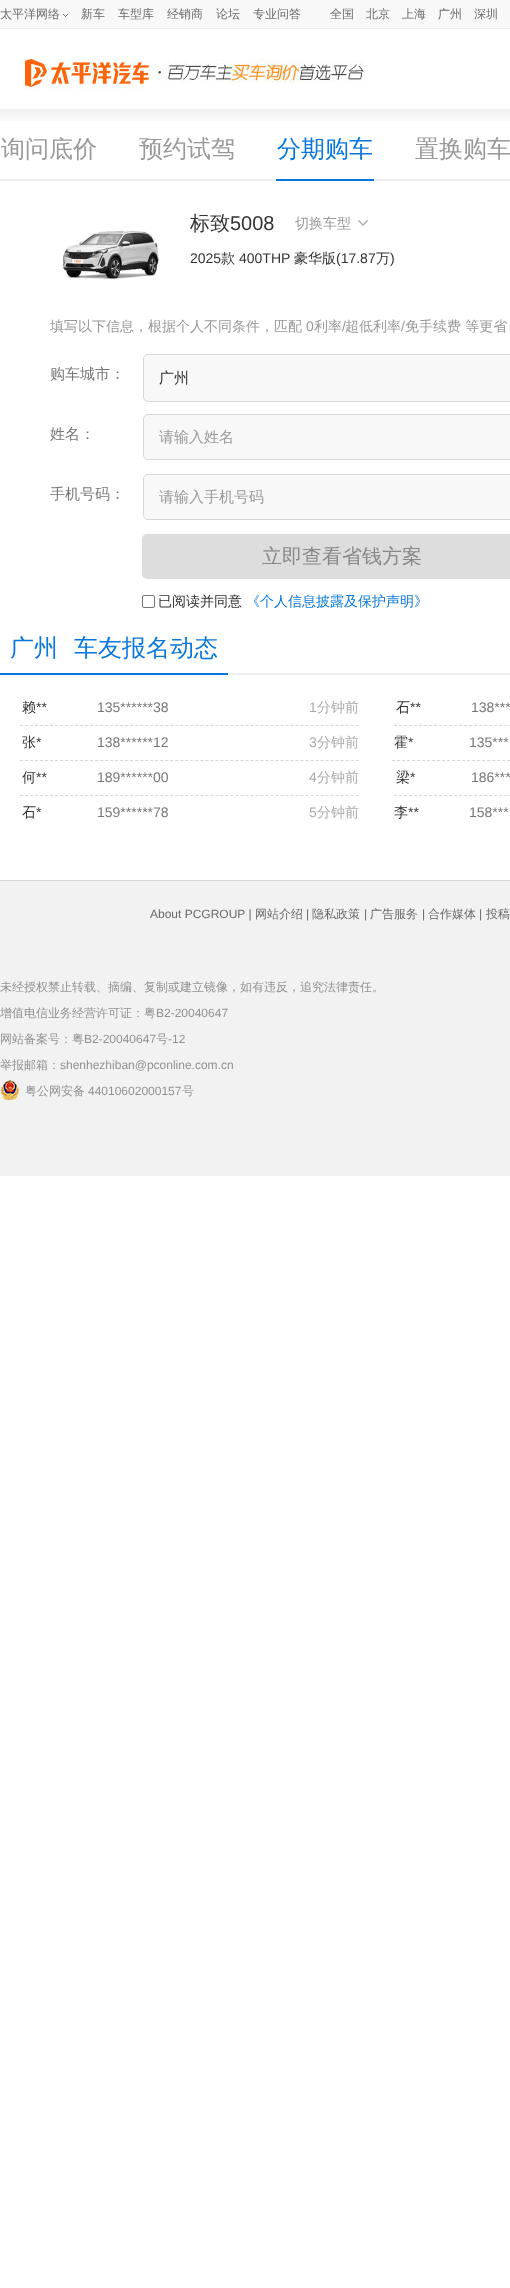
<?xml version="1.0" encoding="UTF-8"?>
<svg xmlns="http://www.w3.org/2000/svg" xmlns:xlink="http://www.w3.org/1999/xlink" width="510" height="2288">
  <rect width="100%" height="100%" fill="#ffffff" />
  <rect width="510" height="28" fill="#f8f8f8" />
  <rect y="28" width="510" height="1" fill="#ececec" />
  <image x="63" y="14" width="5" height="3" xlink:href="image1.png" />
  <image x="24" y="59" width="128" height="32" xlink:href="image2.png" />
  <image x="156" y="59" width="208" height="24" xlink:href="image3.png" />
  <image x="0" y="109" width="510" height="12" xlink:href="image4.png" />
  <rect y="179" width="510" height="2" fill="#efefef" />
  <rect x="276" y="179" width="98" height="2" fill="#0777dd" />
  <image x="62" y="231" width="97" height="48" xlink:href="image5.png" />
  <image x="358" y="220" width="10" height="6" xlink:href="image6.png" />
  <rect x="143.5" y="354.5" width="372" height="47" rx="4.5" fill="#f8f8f8" stroke="#d7d7d7" />
  <rect x="143.5" y="414.5" width="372" height="45" rx="4.5" fill="#f8f8f8" stroke="#d7d7d7" />
  <rect x="143.5" y="474.5" width="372" height="45" rx="4.5" fill="#f8f8f8" stroke="#d7d7d7" />
  <rect x="142" y="534" width="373" height="45" rx="5" fill="#dddddd" />
  <rect x="142.5" y="595.5" width="12" height="12" rx="1.5" fill="none" stroke="#767676" />
  <rect x="228" y="673" width="282" height="2" fill="#efefef" />
  <rect y="673" width="228" height="2" fill="#0777dd" />
  <path d="M 20 725.5 h 339" fill="none" stroke="#d7d7d7" stroke-dasharray="3 2.01" />
  <path d="M 394 725.5 h 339" fill="none" stroke="#d7d7d7" stroke-dasharray="3 2.01" />
  <path d="M 20 760.5 h 339" fill="none" stroke="#d7d7d7" stroke-dasharray="3 2.01" />
  <path d="M 392 760.5 h 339" fill="none" stroke="#d7d7d7" stroke-dasharray="3 2.01" />
  <path d="M 20 795.5 h 339" fill="none" stroke="#d7d7d7" stroke-dasharray="3 2.01" />
  <path d="M 394 795.5 h 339" fill="none" stroke="#d7d7d7" stroke-dasharray="3 2.01" />
  <rect y="881" width="510" height="295" fill="#f2f2f2" />
  <rect y="880" width="510" height="1" fill="#d7d7d7" />
  <image x="1" y="1080" width="18" height="20" xlink:href="image7.png" />
  <text x="0" y="18" style="font-family: WenQuanYi Zen Hei; font-size: 12px; font-weight: 500; fill: #696969">太平洋网络</text>
  <text x="81" y="18" style="font-family: WenQuanYi Zen Hei; font-size: 12px; font-weight: 500; fill: #696969">新车</text>
  <text x="118" y="18" style="font-family: WenQuanYi Zen Hei; font-size: 12px; font-weight: 500; fill: #696969">车型库</text>
  <text x="167" y="18" style="font-family: WenQuanYi Zen Hei; font-size: 12px; font-weight: 500; fill: #696969">经销商</text>
  <text x="216" y="18" style="font-family: WenQuanYi Zen Hei; font-size: 12px; font-weight: 500; fill: #696969">论坛</text>
  <text x="253" y="18" style="font-family: WenQuanYi Zen Hei; font-size: 12px; font-weight: 500; fill: #696969">专业问答</text>
  <text x="330" y="18" style="font-family: WenQuanYi Zen Hei; font-size: 12px; font-weight: 500; fill: #696969">全国</text>
  <text x="366" y="18" style="font-family: WenQuanYi Zen Hei; font-size: 12px; font-weight: 500; fill: #696969">北京</text>
  <text x="402" y="18" style="font-family: WenQuanYi Zen Hei; font-size: 12px; font-weight: 500; fill: #696969">上海</text>
  <text x="438" y="18" style="font-family: WenQuanYi Zen Hei; font-size: 12px; font-weight: 500; fill: #696969">广州</text>
  <text x="474" y="18" style="font-family: WenQuanYi Zen Hei; font-size: 12px; font-weight: 500; fill: #696969">深圳</text>
  <text x="1" y="157" style="font-family: WenQuanYi Zen Hei; font-size: 24px; font-weight: 500; fill: #999999">询问底价</text>
  <text x="139" y="157" style="font-family: WenQuanYi Zen Hei; font-size: 24px; font-weight: 500; fill: #999999">预约试驾</text>
  <text x="277" y="157" style="font-family: WenQuanYi Zen Hei; font-size: 24px; font-weight: 500; fill: #0777dd">分期购车</text>
  <text x="415" y="157" style="font-family: WenQuanYi Zen Hei; font-size: 24px; font-weight: 500; fill: #999999">置换购车</text>
  <text x="190" y="230" style="font-family: WenQuanYi Zen Hei; font-size: 20px; font-weight: 500; fill: #333333">标致</text>
  <text x="230" y="230" style="font-family: Liberation Sans; font-size: 20px; fill: #333333">5008</text>
  <text x="295" y="228" style="font-family: WenQuanYi Zen Hei; font-size: 14px; font-weight: 500; fill: #999999">切换车型</text>
  <text x="190" y="263" style="font-family: Liberation Sans; font-size: 14px; fill: #333333">2025</text>
  <text x="221" y="263" style="font-family: WenQuanYi Zen Hei; font-size: 14px; font-weight: 500; fill: #333333">款</text>
  <text x="239" y="263" style="font-family: Liberation Sans; font-size: 14px; fill: #333333">400THP</text>
  <text x="294" y="263" style="font-family: WenQuanYi Zen Hei; font-size: 14px; font-weight: 500; fill: #333333">豪华版</text>
  <text x="336" y="263" style="font-family: Liberation Sans; font-size: 14px; fill: #333333">(17.87</text>
  <text x="376" y="263" style="font-family: WenQuanYi Zen Hei; font-size: 14px; font-weight: 500; fill: #333333">万</text>
  <text x="390" y="263" style="font-family: Liberation Sans; font-size: 14px; fill: #333333">)</text>
  <text x="50" y="331" style="font-family: WenQuanYi Zen Hei; font-size: 14px; font-weight: 500; fill: #999999">填写以下信息，根据个人不同条件，匹配</text>
  <text x="306" y="331" style="font-family: Liberation Sans; font-size: 14px; fill: #999999">0</text>
  <text x="314" y="331" style="font-family: WenQuanYi Zen Hei; font-size: 14px; font-weight: 500; fill: #999999">利率</text>
  <text x="342" y="331" style="font-family: Liberation Sans; font-size: 14px; fill: #999999">/</text>
  <text x="345" y="331" style="font-family: WenQuanYi Zen Hei; font-size: 14px; font-weight: 500; fill: #999999">超低利率</text>
  <text x="401" y="331" style="font-family: Liberation Sans; font-size: 14px; fill: #999999">/</text>
  <text x="405" y="331" style="font-family: WenQuanYi Zen Hei; font-size: 14px; font-weight: 500; fill: #999999">免手续费 等更省</text>
  <text x="50" y="379" style="font-family: WenQuanYi Zen Hei; font-size: 15px; font-weight: 500; fill: #777777">购车城市：</text>
  <text x="159" y="383" style="font-family: WenQuanYi Zen Hei; font-size: 15px; font-weight: 500; fill: #333333">广州</text>
  <text x="50" y="439" style="font-family: WenQuanYi Zen Hei; font-size: 15px; font-weight: 500; fill: #777777">姓名：</text>
  <text x="159" y="442" style="font-family: WenQuanYi Zen Hei; font-size: 15px; font-weight: 500; fill: #999999">请输入姓名</text>
  <text x="50" y="499" style="font-family: WenQuanYi Zen Hei; font-size: 15px; font-weight: 500; fill: #777777">手机号码：</text>
  <text x="159" y="502" style="font-family: WenQuanYi Zen Hei; font-size: 15px; font-weight: 500; fill: #999999">请输入手机号码</text>
  <text x="262" y="563" style="font-family: WenQuanYi Zen Hei; font-size: 20px; font-weight: 500; fill: #888888">立即查看省钱方案</text>
  <text x="158" y="606" style="font-family: WenQuanYi Zen Hei; font-size: 14px; font-weight: 500; fill: #333333">已阅读并同意</text>
  <text x="246" y="606" style="font-family: WenQuanYi Zen Hei; font-size: 14px; font-weight: 500; fill: #0777dd">《个人信息披露及保护声明》</text>
  <text x="10" y="656" style="font-family: WenQuanYi Zen Hei; font-size: 24px; font-weight: 500; fill: #0777dd">广州</text>
  <text x="74" y="656" style="font-family: WenQuanYi Zen Hei; font-size: 24px; font-weight: 500; fill: #0777dd">车友报名动态</text>
  <text x="22" y="712" style="font-family: WenQuanYi Zen Hei; font-size: 14px; font-weight: 500; fill: #333333">赖</text>
  <text x="36" y="712" style="font-family: Liberation Sans; font-size: 14px; fill: #333333">**</text>
  <text x="97" y="712" style="font-family: Liberation Sans; font-size: 14px; fill: #777777">135******38</text>
  <text x="309" y="712" style="font-family: Liberation Sans; font-size: 14px; fill: #aaaaaa">1</text>
  <text x="317" y="712" style="font-family: WenQuanYi Zen Hei; font-size: 14px; font-weight: 500; fill: #aaaaaa">分钟前</text>
  <text x="396" y="712" style="font-family: WenQuanYi Zen Hei; font-size: 14px; font-weight: 500; fill: #333333">石</text>
  <text x="410" y="712" style="font-family: Liberation Sans; font-size: 14px; fill: #333333">**</text>
  <text x="471" y="712" style="font-family: Liberation Sans; font-size: 14px; fill: #777777">138***</text>
  <text x="22" y="747" style="font-family: WenQuanYi Zen Hei; font-size: 14px; font-weight: 500; fill: #333333">张</text>
  <text x="36" y="747" style="font-family: Liberation Sans; font-size: 14px; fill: #333333">*</text>
  <text x="97" y="747" style="font-family: Liberation Sans; font-size: 14px; fill: #777777">138******12</text>
  <text x="309" y="747" style="font-family: Liberation Sans; font-size: 14px; fill: #aaaaaa">3</text>
  <text x="317" y="747" style="font-family: WenQuanYi Zen Hei; font-size: 14px; font-weight: 500; fill: #aaaaaa">分钟前</text>
  <text x="394" y="747" style="font-family: WenQuanYi Zen Hei; font-size: 14px; font-weight: 500; fill: #333333">霍</text>
  <text x="408" y="747" style="font-family: Liberation Sans; font-size: 14px; fill: #333333">*</text>
  <text x="469" y="747" style="font-family: Liberation Sans; font-size: 14px; fill: #777777">135***</text>
  <text x="22" y="782" style="font-family: WenQuanYi Zen Hei; font-size: 14px; font-weight: 500; fill: #333333">何</text>
  <text x="36" y="782" style="font-family: Liberation Sans; font-size: 14px; fill: #333333">**</text>
  <text x="97" y="782" style="font-family: Liberation Sans; font-size: 14px; fill: #777777">189******00</text>
  <text x="309" y="782" style="font-family: Liberation Sans; font-size: 14px; fill: #aaaaaa">4</text>
  <text x="317" y="782" style="font-family: WenQuanYi Zen Hei; font-size: 14px; font-weight: 500; fill: #aaaaaa">分钟前</text>
  <text x="396" y="782" style="font-family: WenQuanYi Zen Hei; font-size: 14px; font-weight: 500; fill: #333333">梁</text>
  <text x="410" y="782" style="font-family: Liberation Sans; font-size: 14px; fill: #333333">*</text>
  <text x="471" y="782" style="font-family: Liberation Sans; font-size: 14px; fill: #777777">186***</text>
  <text x="22" y="817" style="font-family: WenQuanYi Zen Hei; font-size: 14px; font-weight: 500; fill: #333333">石</text>
  <text x="36" y="817" style="font-family: Liberation Sans; font-size: 14px; fill: #333333">*</text>
  <text x="97" y="817" style="font-family: Liberation Sans; font-size: 14px; fill: #777777">159******78</text>
  <text x="309" y="817" style="font-family: Liberation Sans; font-size: 14px; fill: #aaaaaa">5</text>
  <text x="317" y="817" style="font-family: WenQuanYi Zen Hei; font-size: 14px; font-weight: 500; fill: #aaaaaa">分钟前</text>
  <text x="394" y="817" style="font-family: WenQuanYi Zen Hei; font-size: 14px; font-weight: 500; fill: #333333">李</text>
  <text x="408" y="817" style="font-family: Liberation Sans; font-size: 14px; fill: #333333">**</text>
  <text x="469" y="817" style="font-family: Liberation Sans; font-size: 14px; fill: #777777">158***</text>
  <text x="150" y="918" style="font-family: Liberation Sans; font-size: 12px; fill: #696969">About PCGROUP |</text>
  <text x="255" y="918" style="font-family: WenQuanYi Zen Hei; font-size: 12px; font-weight: 500; fill: #696969">网站介绍</text>
  <text x="306" y="918" style="font-family: Liberation Sans; font-size: 12px; fill: #696969">|</text>
  <text x="312" y="918" style="font-family: WenQuanYi Zen Hei; font-size: 12px; font-weight: 500; fill: #696969">隐私政策</text>
  <text x="364" y="918" style="font-family: Liberation Sans; font-size: 12px; fill: #696969">|</text>
  <text x="370" y="918" style="font-family: WenQuanYi Zen Hei; font-size: 12px; font-weight: 500; fill: #696969">广告服务</text>
  <text x="422" y="918" style="font-family: Liberation Sans; font-size: 12px; fill: #696969">|</text>
  <text x="428" y="918" style="font-family: WenQuanYi Zen Hei; font-size: 12px; font-weight: 500; fill: #696969">合作媒体</text>
  <text x="479" y="918" style="font-family: Liberation Sans; font-size: 12px; fill: #696969">|</text>
  <text x="486" y="918" style="font-family: WenQuanYi Zen Hei; font-size: 12px; font-weight: 500; fill: #696969">投稿</text>
  <text x="0" y="991" style="font-family: WenQuanYi Zen Hei; font-size: 12px; font-weight: 500; fill: #919191">未经授权禁止转载、摘编、复制或建立镜像，如有违反，追究法律责任。</text>
  <text x="0" y="1017" style="font-family: WenQuanYi Zen Hei; font-size: 12px; font-weight: 500; fill: #919191">增值电信业务经营许可证：粤</text>
  <text x="156" y="1017" style="font-family: Liberation Sans; font-size: 12px; fill: #919191">B2-20040647</text>
  <text x="0" y="1043" style="font-family: WenQuanYi Zen Hei; font-size: 12px; font-weight: 500; fill: #919191">网站备案号：粤</text>
  <text x="84" y="1043" style="font-family: Liberation Sans; font-size: 12px; fill: #919191">B2-20040647</text>
  <text x="156" y="1043" style="font-family: WenQuanYi Zen Hei; font-size: 12px; font-weight: 500; fill: #919191">号</text>
  <text x="168" y="1043" style="font-family: Liberation Sans; font-size: 12px; fill: #919191">-12</text>
  <text x="0" y="1069" style="font-family: WenQuanYi Zen Hei; font-size: 12px; font-weight: 500; fill: #919191">举报邮箱：</text>
  <text x="60" y="1069" style="font-family: Liberation Sans; font-size: 12px; fill: #919191">shenhezhiban@pconline.com.cn</text>
  <text x="25" y="1095" style="font-family: WenQuanYi Zen Hei; font-size: 12px; font-weight: 500; fill: #919191">粤公网安备</text>
  <text x="88" y="1095" style="font-family: Liberation Sans; font-size: 12px; fill: #919191">44010602000157</text>
  <text x="182" y="1095" style="font-family: WenQuanYi Zen Hei; font-size: 12px; font-weight: 500; fill: #919191">号</text>
</svg>
